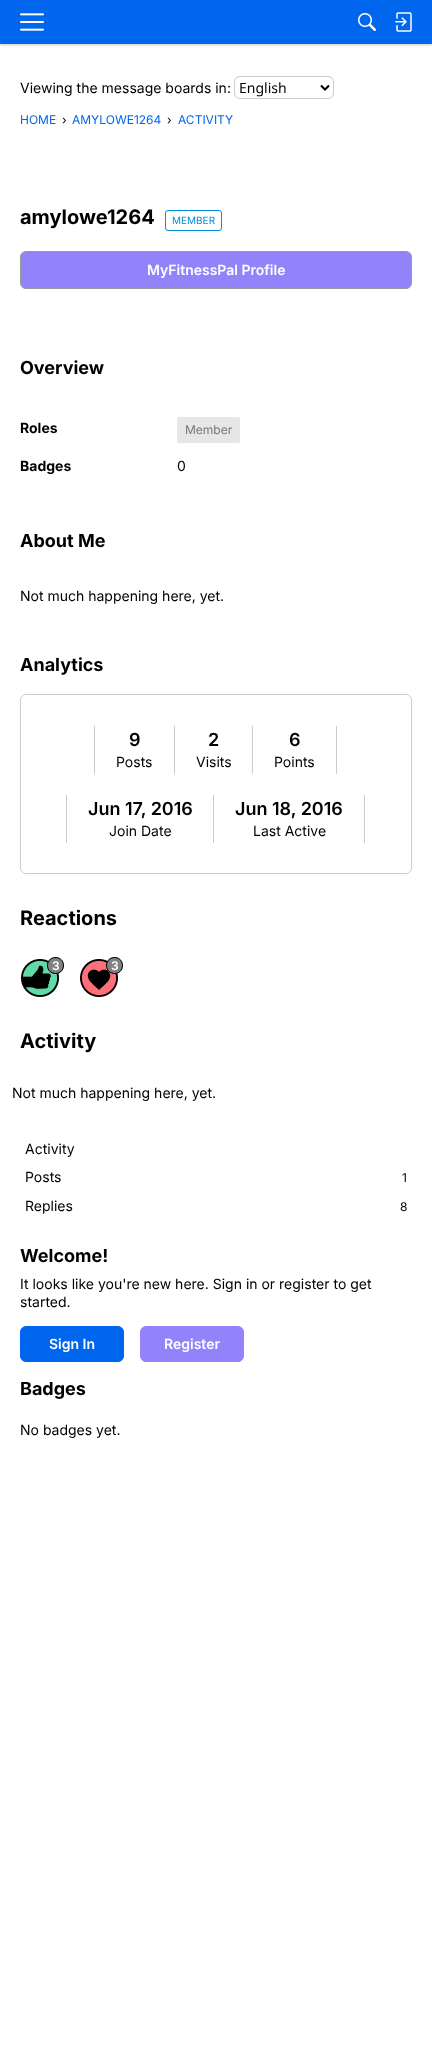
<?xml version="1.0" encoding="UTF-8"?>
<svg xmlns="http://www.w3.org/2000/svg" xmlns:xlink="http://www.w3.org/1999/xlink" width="432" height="2048">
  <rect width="100%" height="100%" fill="#ffffff" />
  <rect y="1" width="432" height="44" fill="#000000" fill-opacity="0.22" filter="blur(1.5px)" />
  <rect width="432" height="44" fill="#0066ee" />
  <image x="20" y="13" width="24" height="18" xlink:href="image1.png" />
  <image x="358" y="13" width="18" height="18" xlink:href="image2.png" />
  <image x="395" y="12" width="17" height="20" xlink:href="image3.png" />
  <rect x="234.5" y="76.5" width="99" height="22" rx="5.5" fill="none" stroke="#cccccc" />
  <path d="M 321 85.5 l 4 4 l 4 -4" fill="none" stroke="#000000" stroke-width="2" />
  <rect x="165.5" y="210.5" width="56" height="20" rx="2.5" fill="none" stroke="#0291db" />
  <rect x="20.5" y="251.5" width="391" height="37" rx="5.5" fill="#9383fb" stroke="#999999" />
  <rect x="177" y="417" width="63" height="26" rx="2" fill="#e6e6e6" />
  <rect x="20.5" y="694.5" width="391" height="179" rx="5.5" fill="none" stroke="#cccccc" />
  <rect x="174" y="726" width="1" height="48" fill="#cccccc" />
  <rect x="94" y="726" width="1" height="48" fill="#cccccc" />
  <rect x="252" y="726" width="1" height="48" fill="#cccccc" />
  <rect x="336" y="726" width="1" height="48" fill="#cccccc" />
  <rect x="213" y="795" width="1" height="48" fill="#cccccc" />
  <rect x="66" y="795" width="1" height="48" fill="#cccccc" />
  <rect x="364" y="795" width="1" height="48" fill="#cccccc" />
  <image x="21" y="959" width="38" height="38" xlink:href="image4.png" />
  <rect x="47.5" y="957.5" width="16" height="16" rx="7.5" fill="#808080" stroke="#000000" />
  <image x="80" y="959" width="38" height="38" xlink:href="image5.png" />
  <rect x="106.5" y="957.5" width="16" height="16" rx="7.5" fill="#808080" stroke="#000000" />
  <rect x="20.5" y="1326.5" width="103" height="35" rx="5.5" fill="#0066ee" stroke="#0066ee" />
  <rect x="140.5" y="1326.5" width="103" height="35" rx="5.5" fill="#9383fb" stroke="#9383fb" />
  <text x="20" y="93" style="font-family: Inter; font-size: 14px; fill: #000000">Viewing the message boards in:</text>
  <text x="239" y="93" style="font-family: Noto Sans; font-size: 14px; fill: #000000">English</text>
  <text x="20" y="124" style="font-family: Inter; font-size: 12px; fill: #0066ee">HOME</text>
  <text x="62" y="124" style="font-family: Inter; font-size: 12px; fill: #000000">›</text>
  <text x="72" y="124" style="font-family: Inter; font-size: 12px; fill: #0066ee">AMYLOWE1264</text>
  <text x="167" y="124" style="font-family: Inter; font-size: 12px; fill: #000000">›</text>
  <text x="178" y="124" style="font-family: Inter; font-size: 12px; fill: #0066ee">ACTIVITY</text>
  <text x="20" y="224" style="font-family: Inter; font-size: 20px; font-weight: bold; fill: #000000">amylowe1264</text>
  <text x="172" y="224" style="font-family: Inter; font-size: 10px; fill: #0291db">MEMBER</text>
  <text x="147" y="275" style="font-family: Inter; font-size: 14px; font-weight: 600; fill: #ffffff">MyFitnessPal Profile</text>
  <text x="20" y="374" style="font-family: Inter; font-size: 18px; font-weight: bold; fill: #000000">Overview</text>
  <text x="20" y="433" style="font-family: Inter; font-size: 14px; font-weight: bold; fill: #000000">Roles</text>
  <text x="185" y="434" style="font-family: Inter; font-size: 12px; fill: #767676">Member</text>
  <text x="20" y="471" style="font-family: Inter; font-size: 14px; font-weight: bold; fill: #000000">Badges</text>
  <text x="177" y="471" style="font-family: Inter; font-size: 14px; fill: #000000">0</text>
  <text x="20" y="547" style="font-family: Inter; font-size: 18px; font-weight: bold; fill: #000000">About Me</text>
  <text x="20" y="601" style="font-family: Inter; font-size: 14px; fill: #000000">Not much happening here, yet.</text>
  <text x="20" y="671" style="font-family: Inter; font-size: 18px; font-weight: bold; fill: #000000">Analytics</text>
  <text x="129" y="746" style="font-family: Inter; font-size: 18px; font-weight: 600; fill: #000000">9</text>
  <text x="116" y="767" style="font-family: Inter; font-size: 14px; fill: #000000">Posts</text>
  <text x="208" y="746" style="font-family: Inter; font-size: 18px; font-weight: 600; fill: #000000">2</text>
  <text x="196" y="767" style="font-family: Inter; font-size: 14px; fill: #000000">Visits</text>
  <text x="289" y="746" style="font-family: Inter; font-size: 18px; font-weight: 600; fill: #000000">6</text>
  <text x="274" y="767" style="font-family: Inter; font-size: 14px; fill: #000000">Points</text>
  <text x="88" y="815" style="font-family: Inter; font-size: 18px; font-weight: 600; fill: #000000">Jun 17, 2016</text>
  <text x="109" y="836" style="font-family: Inter; font-size: 14px; fill: #000000">Join Date</text>
  <text x="235" y="815" style="font-family: Inter; font-size: 18px; font-weight: 600; fill: #000000">Jun 18, 2016</text>
  <text x="253" y="836" style="font-family: Inter; font-size: 14px; fill: #000000">Last Active</text>
  <text x="20" y="925" style="font-family: Inter; font-size: 20px; font-weight: bold; fill: #000000">Reactions</text>
  <text x="52" y="970" style="font-family: Inter; font-size: 12px; font-weight: 600; letter-spacing: -1px; fill: #ffffff">3</text>
  <text x="111" y="970" style="font-family: Inter; font-size: 12px; font-weight: 600; letter-spacing: -1px; fill: #ffffff">3</text>
  <text x="20" y="1048" style="font-family: Inter; font-size: 20px; font-weight: bold; fill: #000000">Activity</text>
  <text x="12" y="1098" style="font-family: Inter; font-size: 14px; fill: #000000">Not much happening here, yet.</text>
  <text x="25" y="1154" style="font-family: Inter; font-size: 14px; fill: #000000">Activity</text>
  <text x="25" y="1182" style="font-family: Inter; font-size: 14px; fill: #000000">Posts</text>
  <text x="402" y="1182" style="font-family: Inter; font-size: 12px; fill: #000000">1</text>
  <text x="25" y="1211" style="font-family: Inter; font-size: 14px; fill: #000000">Replies</text>
  <text x="400" y="1211" style="font-family: Inter; font-size: 12px; fill: #000000">8</text>
  <text x="20" y="1262" style="font-family: Inter; font-size: 18px; font-weight: bold; fill: #000000">Welcome!</text>
  <text x="20" y="1289" style="font-family: Inter; font-size: 14px; fill: #000000">It looks like you're new here. Sign in or register to get</text>
  <text x="20" y="1307" style="font-family: Inter; font-size: 14px; fill: #000000">started.</text>
  <text x="49" y="1349" style="font-family: Inter; font-size: 14px; font-weight: 600; fill: #ffffff">Sign In</text>
  <text x="164" y="1349" style="font-family: Inter; font-size: 14px; font-weight: 600; fill: #ffffff">Register</text>
  <text x="20" y="1395" style="font-family: Inter; font-size: 18px; font-weight: bold; fill: #000000">Badges</text>
  <text x="20" y="1435" style="font-family: Inter; font-size: 14px; fill: #000000">No badges yet.</text>
</svg>
